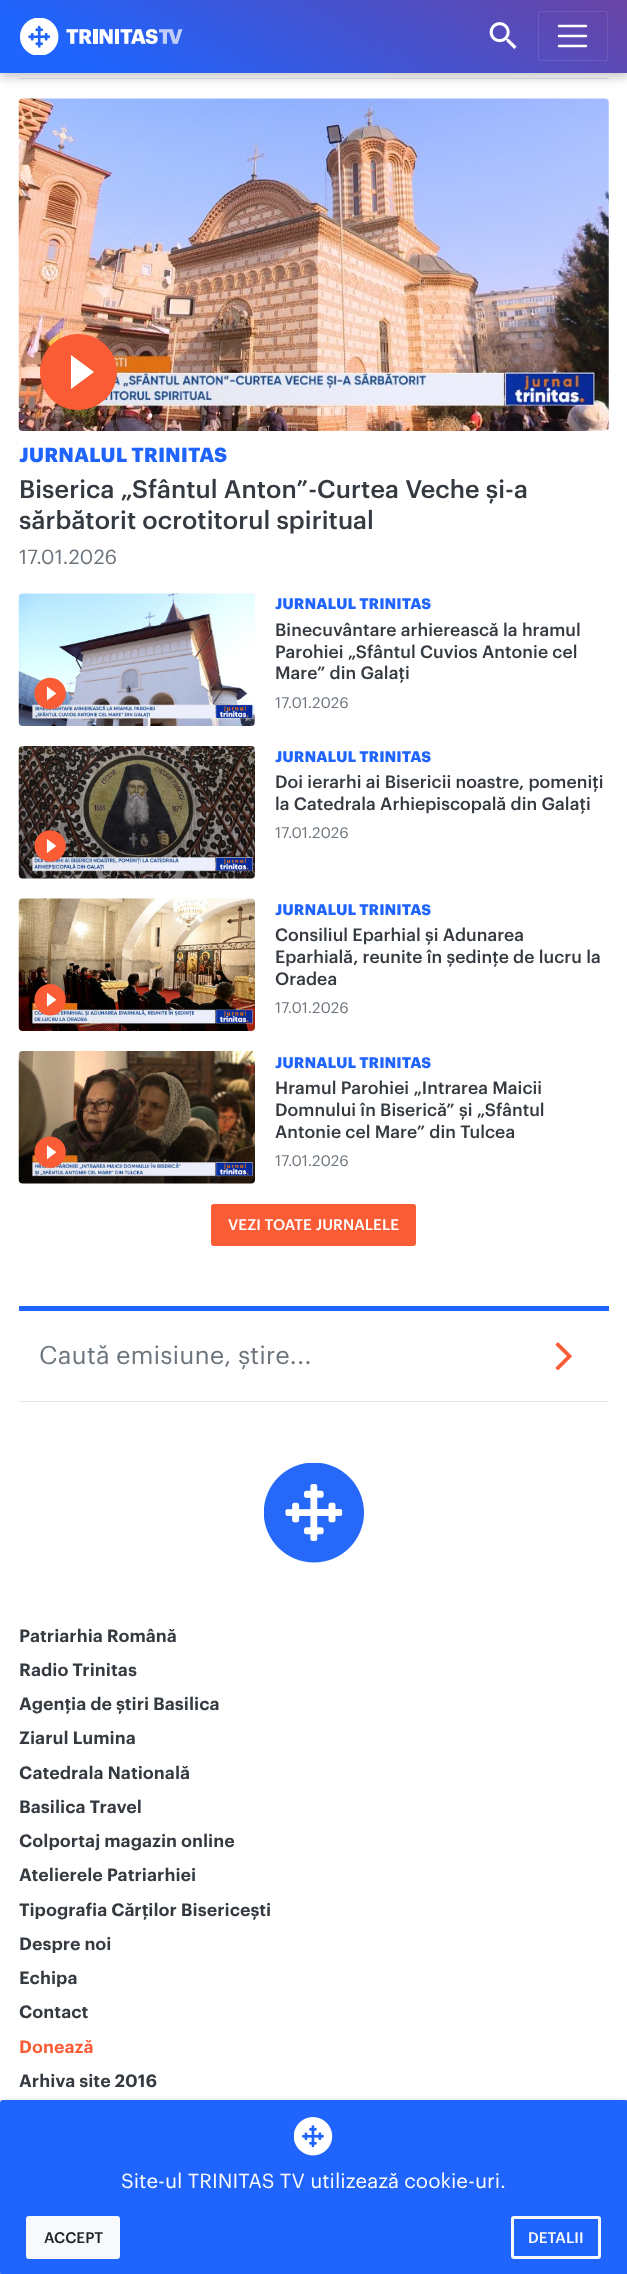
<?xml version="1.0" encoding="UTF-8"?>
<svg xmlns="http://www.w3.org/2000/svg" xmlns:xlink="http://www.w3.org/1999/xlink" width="627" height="2274">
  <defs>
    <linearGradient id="g1" gradientUnits="userSpaceOnUse" x1="220" y1="199" x2="408" y2="-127"><stop offset="0.15" stop-color="#1f64fd" /><stop offset="1" stop-color="#6a43a4" /></linearGradient>
  </defs>
  <rect width="100%" height="100%" fill="#ffffff" />
  <rect x="19" y="78" width="590" height="1" fill="#dee2e6" />
  <rect y="5" width="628" height="73" fill="#000000" fill-opacity="0.2" filter="blur(5px)" />
  <rect width="627" height="73" fill="url(#g1)" />
  <image x="20" y="18" width="163" height="37" xlink:href="image1.png" />
  <image x="489" y="22" width="28" height="27" xlink:href="image2.png" />
  <rect x="538.5" y="11.5" width="69" height="49" rx="2.5" fill="none" stroke="#ffffff" stroke-opacity="0.1" />
  <path d="M 559 26 h 27 m -27 10 h 27 m -27 10 h 27" fill="none" stroke="#ffffff" stroke-width="2.5" stroke-linecap="round" />
  <image x="18" y="98" width="591" height="333" xlink:href="image3.png" />
  <rect x="71" y="355" width="23" height="34" fill="#ffffff" />
  <path d="M 71 389 l 23 -17 l -23 -17 z m 7 -55 c 22 0 39 17 39 38 c 0 21 -17 38 -39 38 c -21 0 -38 -17 -38 -38 c 0 -21 17 -38 38 -38 z" fill="#fa5c35" />
  <image x="18" y="593" width="237" height="133" xlink:href="image4.png" />
  <rect x="46" y="686" width="11" height="15" fill="#ffffff" />
  <image x="34" y="677" width="32" height="33" xlink:href="image5.png" />
  <image x="18" y="746" width="237" height="133" xlink:href="image6.png" />
  <rect x="46" y="839" width="11" height="14" fill="#ffffff" />
  <image x="34" y="830" width="32" height="32" xlink:href="image7.png" />
  <image x="18" y="898" width="237" height="133" xlink:href="image8.png" />
  <rect x="46" y="992" width="11" height="15" fill="#ffffff" />
  <image x="34" y="984" width="32" height="32" xlink:href="image9.png" />
  <image x="18" y="1051" width="237" height="133" xlink:href="image10.png" />
  <rect x="46" y="1145" width="11" height="15" fill="#ffffff" />
  <image x="34" y="1136" width="32" height="32" xlink:href="image11.png" />
  <rect x="212.5" y="1205.5" width="202" height="39" rx="1.5" fill="#fa5c35" stroke="#fa5c35" stroke-width="3" />
  <rect x="19" y="1306" width="590" height="5" fill="#1f64fd" />
  <rect x="19" y="1401" width="590" height="1" fill="#e6e6e6" />
  <image x="555" y="1342" width="17" height="29" xlink:href="image12.png" />
  <image x="264" y="1463" width="100" height="100" xlink:href="image13.png" />
  <rect y="2105" width="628" height="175" rx="3" fill="#000000" fill-opacity="0.5" filter="blur(5px)" />
  <rect y="2100" width="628" height="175" rx="3" fill="#1f64fd" />
  <image x="294" y="2117" width="39" height="39" xlink:href="image14.png" />
  <rect x="27.5" y="2217.5" width="91" height="40" rx="1.5" fill="#f8f9fa" stroke="#f8f9fa" stroke-width="3" />
  <rect x="512.5" y="2217.5" width="87" height="40" rx="1.5" fill="none" stroke="#f8f9fa" stroke-width="3" />
  <text x="19" y="462" style="font-family: Graphik; font-size: 20px; font-weight: bold; fill: #1f64fd">JURNALUL TRINITAS</text>
  <text x="19" y="498" style="font-family: Graphik; font-size: 25px; font-weight: 500; fill: #343a40">Biserica „Sfântul Anton”-Curtea Veche și-a</text>
  <text x="19" y="529" style="font-family: Graphik; font-size: 25px; font-weight: 500; fill: #343a40">sărbătorit ocrotitorul spiritual</text>
  <text x="19" y="564" style="font-family: Graphik; font-size: 20px; fill: #6c757d">17.01.2026</text>
  <text x="275" y="609" style="font-family: Graphik; font-size: 15px; font-weight: bold; fill: #1f64fd">JURNALUL TRINITAS</text>
  <text x="275" y="636" style="font-family: Graphik; font-size: 17.5px; font-weight: 500; fill: #343a40">Binecuvântare arhierească la hramul</text>
  <text x="275" y="658" style="font-family: Graphik; font-size: 17.5px; font-weight: 500; fill: #343a40">Parohiei „Sfântul Cuvios Antonie cel</text>
  <text x="275" y="679" style="font-family: Graphik; font-size: 17.5px; font-weight: 500; fill: #343a40">Mare” din Galați</text>
  <text x="275" y="708" style="font-family: Graphik; font-size: 15px; fill: #6c757d">17.01.2026</text>
  <text x="275" y="762" style="font-family: Graphik; font-size: 15px; font-weight: bold; fill: #1f64fd">JURNALUL TRINITAS</text>
  <text x="275" y="788" style="font-family: Graphik; font-size: 17.5px; font-weight: 500; fill: #343a40">Doi ierarhi ai Bisericii noastre, pomeniți</text>
  <text x="275" y="810" style="font-family: Graphik; font-size: 17.5px; font-weight: 500; fill: #343a40">la Catedrala Arhiepiscopală din Galați</text>
  <text x="275" y="838" style="font-family: Graphik; font-size: 15px; fill: #6c757d">17.01.2026</text>
  <text x="275" y="915" style="font-family: Graphik; font-size: 15px; font-weight: bold; fill: #1f64fd">JURNALUL TRINITAS</text>
  <text x="275" y="941" style="font-family: Graphik; font-size: 17.5px; font-weight: 500; fill: #343a40">Consiliul Eparhial și Adunarea</text>
  <text x="275" y="963" style="font-family: Graphik; font-size: 17.5px; font-weight: 500; fill: #343a40">Eparhială, reunite în ședințe de lucru la</text>
  <text x="275" y="985" style="font-family: Graphik; font-size: 17.5px; font-weight: 500; fill: #343a40">Oradea</text>
  <text x="275" y="1013" style="font-family: Graphik; font-size: 15px; fill: #6c757d">17.01.2026</text>
  <text x="275" y="1068" style="font-family: Graphik; font-size: 15px; font-weight: bold; fill: #1f64fd">JURNALUL TRINITAS</text>
  <text x="275" y="1094" style="font-family: Graphik; font-size: 17.5px; font-weight: 500; fill: #343a40">Hramul Parohiei „Intrarea Maicii</text>
  <text x="275" y="1116" style="font-family: Graphik; font-size: 17.5px; font-weight: 500; fill: #343a40">Domnului în Biserică” și „Sfântul</text>
  <text x="275" y="1138" style="font-family: Graphik; font-size: 17.5px; font-weight: 500; fill: #343a40">Antonie cel Mare” din Tulcea</text>
  <text x="275" y="1166" style="font-family: Graphik; font-size: 15px; fill: #6c757d">17.01.2026</text>
  <text x="228" y="1230" style="font-family: Graphik; font-size: 15px; font-weight: 500; fill: #ffffff">VEZI TOATE JURNALELE</text>
  <text x="39" y="1364" style="font-family: Graphik; font-size: 25px; fill: #6c757d">Caută emisiune, știre...</text>
  <text x="19" y="1642" style="font-family: Graphik; font-size: 17.5px; font-weight: 600; fill: #343a40">Patriarhia Română</text>
  <text x="19" y="1676" style="font-family: Graphik; font-size: 17.5px; font-weight: 600; fill: #343a40">Radio Trinitas</text>
  <text x="19" y="1710" style="font-family: Graphik; font-size: 17.5px; font-weight: 600; fill: #343a40">Agenția de știri Basilica</text>
  <text x="19" y="1744" style="font-family: Graphik; font-size: 17.5px; font-weight: 600; fill: #343a40">Ziarul Lumina</text>
  <text x="19" y="1779" style="font-family: Graphik; font-size: 17.5px; font-weight: 600; fill: #343a40">Catedrala Natională</text>
  <text x="19" y="1813" style="font-family: Graphik; font-size: 17.5px; font-weight: 600; fill: #343a40">Basilica Travel</text>
  <text x="19" y="1847" style="font-family: Graphik; font-size: 17.5px; font-weight: 600; fill: #343a40">Colportaj magazin online</text>
  <text x="19" y="1881" style="font-family: Graphik; font-size: 17.5px; font-weight: 600; fill: #343a40">Atelierele Patriarhiei</text>
  <text x="19" y="1916" style="font-family: Graphik; font-size: 17.5px; font-weight: 600; fill: #343a40">Tipografia Cărților Bisericești</text>
  <text x="19" y="1950" style="font-family: Graphik; font-size: 17.5px; font-weight: 600; fill: #343a40">Despre noi</text>
  <text x="19" y="1984" style="font-family: Graphik; font-size: 17.5px; font-weight: 600; fill: #343a40">Echipa</text>
  <text x="19" y="2018" style="font-family: Graphik; font-size: 17.5px; font-weight: 600; fill: #343a40">Contact</text>
  <text x="19" y="2053" style="font-family: Graphik; font-size: 17.5px; font-weight: 600; fill: #fa5c35">Donează</text>
  <text x="19" y="2087" style="font-family: Graphik; font-size: 17.5px; font-weight: 600; fill: #343a40">Arhiva site 2016</text>
  <text x="121" y="2188" style="font-family: Graphik; font-size: 20px; fill: #ffffff">Site-ul TRINITAS TV utilizează cookie-uri.</text>
  <text x="44" y="2243" style="font-family: Graphik; font-size: 15px; font-weight: 500; fill: #212529">ACCEPT</text>
  <text x="528" y="2243" style="font-family: Graphik; font-size: 15px; font-weight: 500; fill: #f8f9fa">DETALII</text>
</svg>
